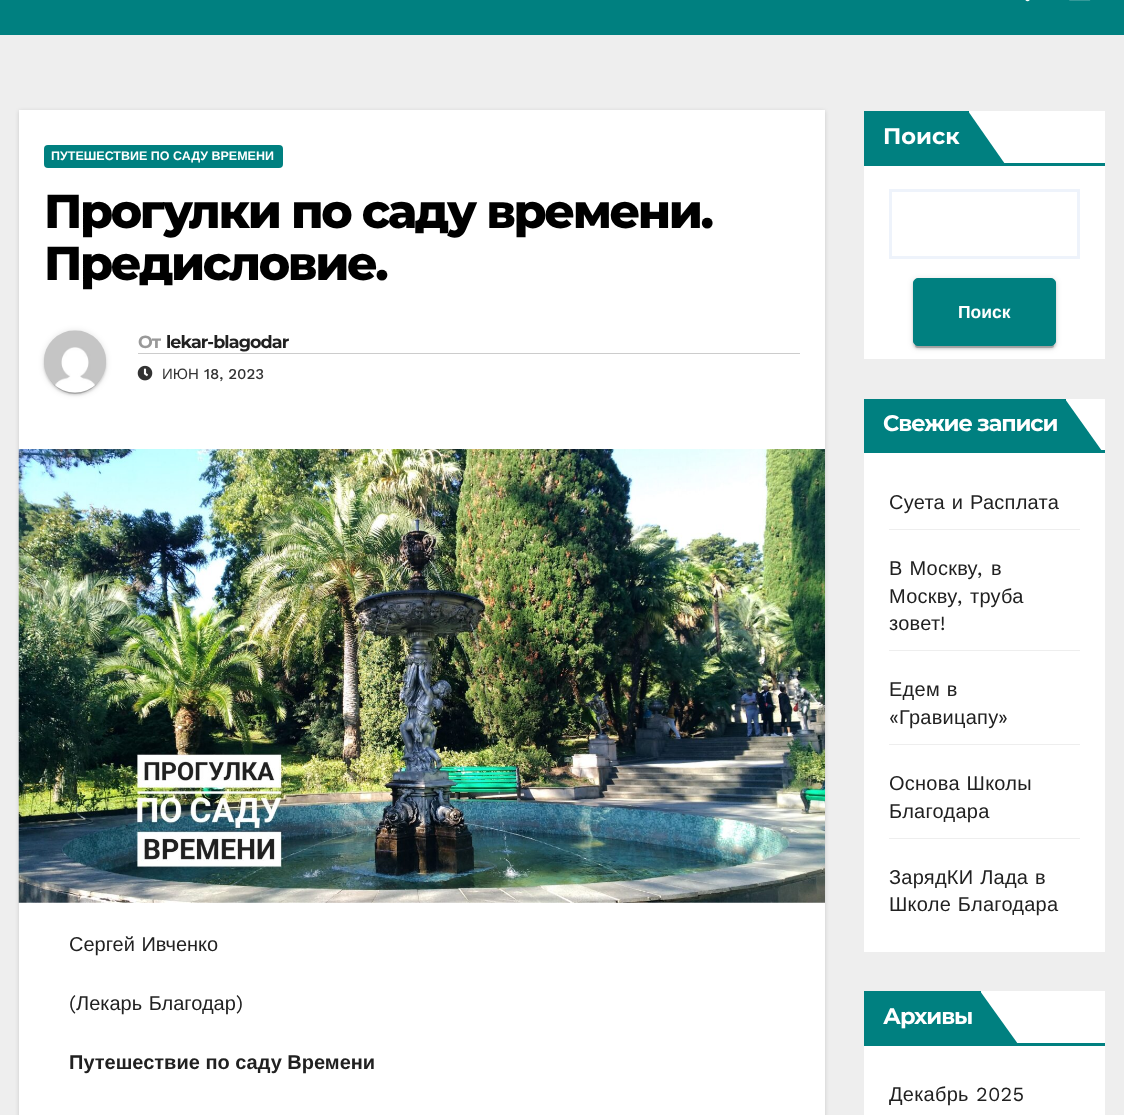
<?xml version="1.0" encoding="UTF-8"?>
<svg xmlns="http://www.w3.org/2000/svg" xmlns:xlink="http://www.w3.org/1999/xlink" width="1124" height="1115">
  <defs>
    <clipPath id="clip1"><rect x="889" y="1069" width="191" height="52" /></clipPath>
  </defs>
  <rect width="100%" height="100%" fill="#eeeeee" />
  <rect width="1124" height="35" fill="#008080" />
  <image x="1025" y="0" width="5" height="2" xlink:href="image1.png" />
  <image x="1069" y="0" width="22" height="1" xlink:href="image2.png" />
  <rect x="19" y="111" width="806" height="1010" fill="#000000" fill-opacity="0.15" filter="blur(2px)" />
  <rect x="19" y="110" width="806" height="1005" fill="#ffffff" />
  <rect x="44" y="145" width="239" height="23" rx="4" fill="#008080" />
  <rect x="44" y="331" width="62" height="63" rx="31" fill="#000000" fill-opacity="0.12" filter="blur(3px)" />
  <rect x="46" y="336" width="58" height="58" rx="29" fill="#000000" fill-opacity="0.2" filter="blur(0.5px)" />
  <rect x="44" y="333" width="62" height="62" rx="31" fill="#000000" fill-opacity="0.14" filter="blur(1px)" />
  <image x="44" y="330" width="62" height="63" xlink:href="image3.png" />
  <rect x="138" y="353" width="662" height="1" fill="#cccccc" />
  <image x="137" y="365" width="16" height="16" xlink:href="image4.png" />
  <image x="18" y="449" width="807" height="454" xlink:href="image5.png" />
  <rect x="864" y="111" width="241" height="248" fill="#ffffff" />
  <rect x="864" y="111" width="105" height="52" fill="#008080" />
  <path d="M 968 164 v -53 l 37 53 z" fill="#008080" />
  <rect x="864" y="163" width="241" height="3" fill="#008080" />
  <rect x="890.5" y="190.5" width="188" height="67" fill="none" stroke="#eef3fb" stroke-width="3" />
  <rect x="913" y="279" width="143" height="69" rx="5" fill="#000000" fill-opacity="0.12" filter="blur(3px)" />
  <rect x="915" y="284" width="139" height="64" rx="2.5" fill="#000000" fill-opacity="0.2" filter="blur(0.5px)" />
  <rect x="913" y="280" width="143" height="69" rx="5" fill="#000000" fill-opacity="0.14" filter="blur(1px)" />
  <rect x="913.5" y="278.5" width="142" height="67" rx="4.5" fill="#008080" stroke="#008080" />
  <rect x="864" y="399" width="241" height="553" fill="#ffffff" />
  <rect x="864" y="399" width="202" height="51" fill="#008080" />
  <path d="M 1065 451 v -52 l 37 52 z" fill="#008080" />
  <rect x="864" y="450" width="241" height="3" fill="#008080" />
  <rect x="889" y="529" width="191" height="1" fill="#eeeeee" />
  <rect x="889" y="650" width="191" height="1" fill="#eeeeee" />
  <rect x="889" y="744" width="191" height="1" fill="#eeeeee" />
  <rect x="889" y="838" width="191" height="1" fill="#eeeeee" />
  <rect x="864" y="991" width="241" height="124" fill="#ffffff" />
  <rect x="864" y="991" width="117" height="52" fill="#008080" />
  <path d="M 980 1044 v -53 l 38 53 z" fill="#008080" />
  <rect x="864" y="1043" width="241" height="3" fill="#008080" />
  <text x="51" y="160" style="font-family: Liberation Sans; font-size: 12.5px; font-weight: bold; fill: #ffffff">ПУТЕШЕСТВИЕ ПО САДУ ВРЕМЕНИ</text>
  <text x="44" y="228" style="font-family: Montserrat; font-size: 47.5px; font-weight: 800; letter-spacing: -2.4px; fill: #000000">Прогулки по саду времени.</text>
  <text x="44" y="280" style="font-family: Montserrat; font-size: 47.5px; font-weight: 800; letter-spacing: -2.4px; fill: #000000">Предисловие.</text>
  <text x="138" y="348" style="font-family: Montserrat; font-size: 17.5px; font-weight: bold; letter-spacing: -0.9px; fill: #999999">От</text>
  <text x="166" y="348" style="font-family: Montserrat; font-size: 17.5px; font-weight: bold; letter-spacing: -0.9px; fill: #212121">lekar-blagodar</text>
  <text x="162" y="379" style="font-family: Liberation Sans; font-size: 15px; fill: #333333">ИЮН</text>
  <text x="204" y="379" style="font-family: Work Sans; font-size: 15px; font-weight: 500; fill: #333333">18, 2023</text>
  <text x="69" y="951" word-spacing="1" style="font-family: Liberation Sans; font-size: 20px; fill: #212121">Сергей Ивченко</text>
  <text x="69" y="1010" style="font-family: Work Sans; font-size: 20px; fill: #212121">(</text>
  <text x="76" y="1010" word-spacing="1" style="font-family: Liberation Sans; font-size: 20px; fill: #212121">Лекарь Благодар</text>
  <text x="236" y="1010" style="font-family: Work Sans; font-size: 20px; fill: #212121">)</text>
  <text x="69" y="1069" style="font-family: Liberation Sans; font-size: 20px; font-weight: bold; fill: #212121">Путешествие по саду Времени</text>
  <text x="883" y="144" style="font-family: Montserrat; font-size: 22.5px; font-weight: bold; fill: #ffffff">Поиск</text>
  <text x="958" y="318" style="font-family: Liberation Sans; font-size: 17.5px; font-weight: bold; fill: #ffffff">Поиск</text>
  <text x="883" y="431" style="font-family: Montserrat; font-size: 22.5px; font-weight: bold; letter-spacing: -1.1px; fill: #ffffff">Свежие записи</text>
  <text x="889" y="509" word-spacing="1" style="font-family: Liberation Sans; font-size: 20px; letter-spacing: 0.25px; fill: #212121">Суета и Расплата</text>
  <text x="889" y="575" word-spacing="1" style="font-family: Liberation Sans; font-size: 20px; letter-spacing: 0.25px; fill: #212121">В Москву</text>
  <text x="977" y="575" style="font-family: Work Sans; font-size: 20px; letter-spacing: 0.25px; fill: #212121">,</text>
  <text x="991" y="575" style="font-family: Liberation Sans; font-size: 20px; letter-spacing: 0.25px; fill: #212121">в</text>
  <text x="889" y="603" style="font-family: Liberation Sans; font-size: 20px; letter-spacing: 0.25px; fill: #212121">Москву</text>
  <text x="957" y="603" style="font-family: Work Sans; font-size: 20px; letter-spacing: 0.25px; fill: #212121">,</text>
  <text x="970" y="603" style="font-family: Liberation Sans; font-size: 20px; letter-spacing: 0.25px; fill: #212121">труба</text>
  <text x="889" y="630" style="font-family: Liberation Sans; font-size: 20px; letter-spacing: 0.25px; fill: #212121">зовет</text>
  <text x="940" y="630" style="font-family: Work Sans; font-size: 20px; letter-spacing: 0.25px; fill: #212121">!</text>
  <text x="889" y="696" word-spacing="1" style="font-family: Liberation Sans; font-size: 20px; letter-spacing: 0.25px; fill: #212121">Едем в</text>
  <text x="889" y="724" style="font-family: Work Sans; font-size: 20px; letter-spacing: 0.25px; fill: #212121">«</text>
  <text x="899" y="724" style="font-family: Liberation Sans; font-size: 20px; letter-spacing: 0.25px; fill: #212121">Гравицапу</text>
  <text x="998" y="724" style="font-family: Work Sans; font-size: 20px; letter-spacing: 0.25px; fill: #212121">»</text>
  <text x="889" y="790" word-spacing="1" style="font-family: Liberation Sans; font-size: 20px; letter-spacing: 0.25px; fill: #212121">Основа Школы</text>
  <text x="889" y="818" style="font-family: Liberation Sans; font-size: 20px; letter-spacing: 0.25px; fill: #212121">Благодара</text>
  <text x="889" y="884" word-spacing="1" style="font-family: Liberation Sans; font-size: 20px; letter-spacing: 0.25px; fill: #212121">ЗарядКИ Лада в</text>
  <text x="889" y="911" word-spacing="1" style="font-family: Liberation Sans; font-size: 20px; letter-spacing: 0.25px; fill: #212121">Школе Благодара</text>
  <text x="883" y="1024" style="font-family: Montserrat; font-size: 22.5px; font-weight: bold; letter-spacing: -1.1px; fill: #ffffff">Архивы</text>
  <g clip-path="url(#clip1)">
    <text x="889" y="1101" style="font-family: Liberation Sans; font-size: 20px; letter-spacing: 0.25px; fill: #212121">Декабрь</text>
  </g>
  <text x="976" y="1101" style="font-family: Work Sans; font-size: 20px; letter-spacing: 0.25px; fill: #212121">2025</text>
</svg>
